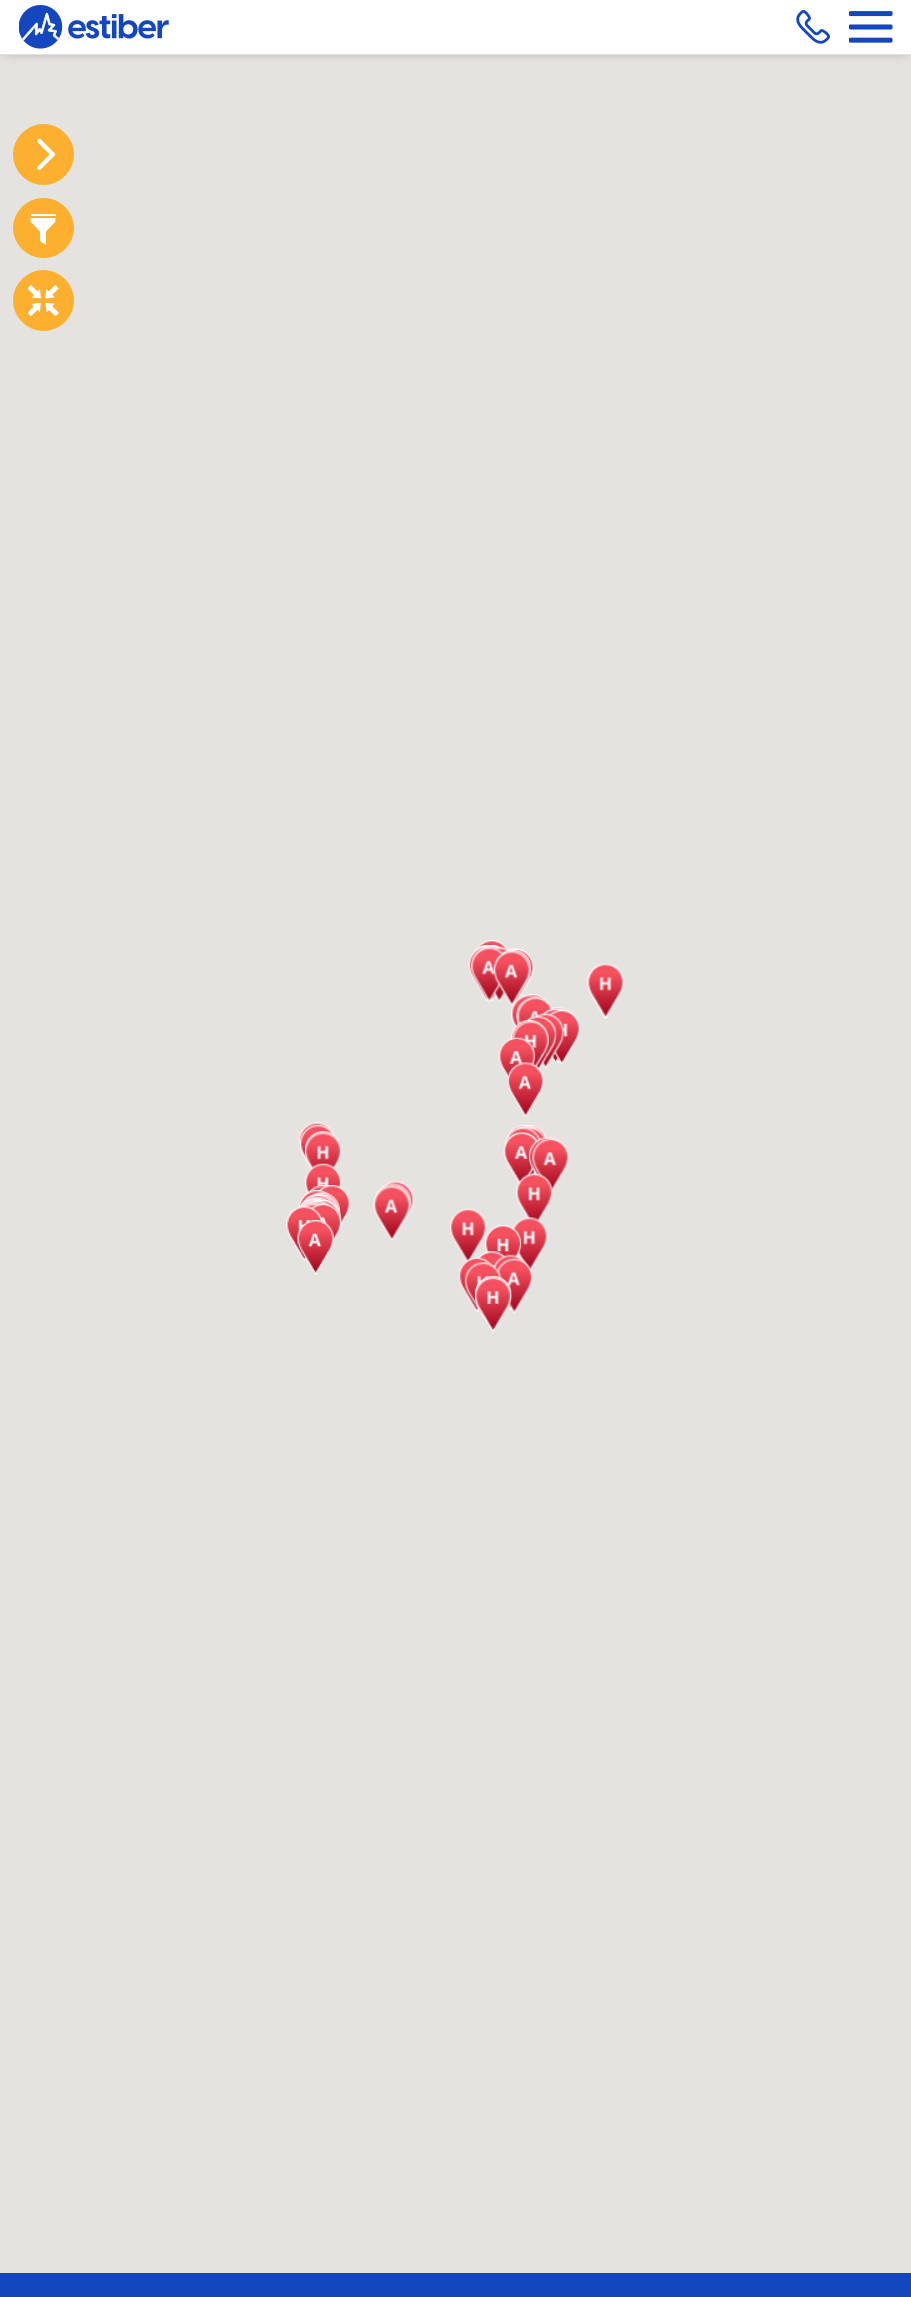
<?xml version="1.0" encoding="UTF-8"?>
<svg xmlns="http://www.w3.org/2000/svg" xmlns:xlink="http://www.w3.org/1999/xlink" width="911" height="2297">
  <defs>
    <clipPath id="clip1"><rect x="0" y="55" width="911" height="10" /></clipPath>
  </defs>
  <rect width="100%" height="100%" fill="#ffffff" />
  <rect y="55" width="911" height="2218" fill="#e5e3df" />
  <g clip-path="url(#clip1)">
    <rect x="3" y="3" width="906" height="50" fill="#9e9e9e" fill-opacity="0.75" filter="blur(6px)" />
  </g>
  <rect y="54" width="911" height="1" fill="#e1e1e1" />
  <image x="19" y="5" width="150" height="44" xlink:href="image1.png" />
  <image x="796" y="10" width="34" height="34" xlink:href="image2.png" />
  <image x="849" y="11" width="44" height="32" xlink:href="image3.png" />
  <image x="473" y="940" width="37" height="15" xlink:href="image4.png" />
  <image x="470" y="945" width="32" height="55" xlink:href="image5.png" />
  <image x="471" y="945" width="32" height="55" xlink:href="image6.png" />
  <image x="471" y="945" width="32" height="55" xlink:href="image7.png" />
  <image x="475" y="945" width="31" height="55" xlink:href="image8.png" />
  <image x="468" y="946" width="30" height="55" xlink:href="image9.png" />
  <image x="476" y="946" width="31" height="55" xlink:href="image12.png" />
  <image x="472" y="946" width="31" height="55" xlink:href="image10.png" />
  <image x="473" y="946" width="31" height="55" xlink:href="image11.png" />
  <image x="488" y="947" width="24" height="56" xlink:href="image14.png" />
  <image x="471" y="947" width="34" height="56" xlink:href="image13.png" />
  <image x="496" y="948" width="37" height="56" xlink:href="image15.png" />
  <image x="497" y="948" width="37" height="56" xlink:href="image16.png" />
  <image x="497" y="948" width="37" height="56" xlink:href="image17.png" />
  <image x="495" y="950" width="37" height="55" xlink:href="image18.png" />
  <image x="493" y="951" width="37" height="55" xlink:href="image19.png" />
  <image x="587" y="964" width="37" height="55" xlink:href="image21.png" />
  <image x="587" y="964" width="37" height="55" xlink:href="image23.png" />
  <image x="587" y="963" width="37" height="56" xlink:href="image20.png" />
  <image x="513" y="994" width="37" height="33" xlink:href="image22.png" />
  <image x="511" y="995" width="35" height="34" xlink:href="image24.png" />
  <image x="516" y="997" width="37" height="30" xlink:href="image25.png" />
  <image x="517" y="997" width="37" height="29" xlink:href="image26.png" />
  <image x="542" y="1007" width="35" height="56" xlink:href="image27.png" />
  <image x="545" y="1009" width="33" height="55" xlink:href="image29.png" />
  <image x="541" y="1009" width="27" height="55" xlink:href="image28.png" />
  <image x="548" y="1010" width="32" height="55" xlink:href="image30.png" />
  <image x="532" y="1013" width="33" height="56" xlink:href="image31.png" />
  <image x="523" y="1016" width="34" height="55" xlink:href="image32.png" />
  <image x="511" y="1020" width="37" height="48" xlink:href="image33.png" />
  <image x="512" y="1021" width="37" height="48" xlink:href="image34.png" />
  <image x="498" y="1037" width="38" height="44" xlink:href="image35.png" />
  <image x="507" y="1062" width="37" height="56" xlink:href="image36.png" />
  <image x="298" y="1122" width="37" height="49" xlink:href="image37.png" />
  <image x="300" y="1125" width="36" height="46" xlink:href="image38.png" />
  <image x="517" y="1125" width="31" height="51" xlink:href="image40.png" />
  <image x="506" y="1125" width="36" height="53" xlink:href="image39.png" />
  <image x="509" y="1126" width="36" height="52" xlink:href="image41.png" />
  <image x="509" y="1126" width="36" height="52" xlink:href="image42.png" />
  <image x="509" y="1126" width="36" height="52" xlink:href="image43.png" />
  <image x="518" y="1127" width="29" height="51" xlink:href="image46.png" />
  <image x="504" y="1127" width="37" height="51" xlink:href="image44.png" />
  <image x="305" y="1131" width="37" height="39" xlink:href="image45.png" />
  <image x="304" y="1132" width="38" height="39" xlink:href="image47.png" />
  <image x="503" y="1132" width="36" height="54" xlink:href="image48.png" />
  <image x="503" y="1132" width="36" height="54" xlink:href="image49.png" />
  <image x="528" y="1137" width="36" height="43" xlink:href="image50.png" />
  <image x="305" y="1163" width="36" height="31" xlink:href="image51.png" />
  <image x="532" y="1138" width="37" height="56" xlink:href="image52.png" />
  <image x="377" y="1181" width="37" height="55" xlink:href="image53.png" />
  <image x="516" y="1173" width="37" height="50" xlink:href="image54.png" />
  <image x="375" y="1183" width="37" height="56" xlink:href="image55.png" />
  <image x="306" y="1185" width="27" height="11" xlink:href="image56.png" />
  <image x="374" y="1184" width="36" height="56" xlink:href="image57.png" />
  <image x="317" y="1185" width="33" height="54" xlink:href="image59.png" />
  <image x="298" y="1190" width="35" height="19" xlink:href="image58.png" />
  <image x="373" y="1186" width="37" height="55" xlink:href="image60.png" />
  <image x="305" y="1192" width="35" height="26" xlink:href="image61.png" />
  <image x="300" y="1193" width="37" height="15" xlink:href="image62.png" />
  <image x="303" y="1193" width="36" height="20" xlink:href="image63.png" />
  <image x="305" y="1195" width="34" height="18" xlink:href="image65.png" />
  <image x="300" y="1195" width="36" height="13" xlink:href="image64.png" />
  <image x="300" y="1197" width="32" height="11" xlink:href="image66.png" />
  <image x="301" y="1197" width="33" height="10" xlink:href="image67.png" />
  <image x="306" y="1198" width="26" height="6" xlink:href="image70.png" />
  <image x="297" y="1198" width="29" height="11" xlink:href="image68.png" />
  <image x="298" y="1198" width="29" height="11" xlink:href="image69.png" />
  <image x="300" y="1200" width="27" height="8" xlink:href="image71.png" />
  <image x="300" y="1200" width="25" height="8" xlink:href="image72.png" />
  <image x="303" y="1200" width="31" height="8" xlink:href="image73.png" />
  <image x="311" y="1200" width="30" height="42" xlink:href="image75.png" />
  <image x="308" y="1200" width="32" height="29" xlink:href="image74.png" />
  <image x="303" y="1201" width="31" height="8" xlink:href="image77.png" />
  <image x="302" y="1201" width="30" height="7" xlink:href="image76.png" />
  <image x="300" y="1202" width="27" height="6" xlink:href="image78.png" />
  <image x="302" y="1203" width="23" height="6" xlink:href="image79.png" />
  <image x="310" y="1203" width="32" height="56" xlink:href="image81.png" />
  <image x="286" y="1206" width="37" height="56" xlink:href="image80.png" />
  <image x="450" y="1208" width="37" height="55" xlink:href="image82.png" />
  <image x="511" y="1217" width="37" height="56" xlink:href="image83.png" />
  <image x="297" y="1220" width="37" height="55" xlink:href="image84.png" />
  <image x="485" y="1225" width="37" height="33" xlink:href="image85.png" />
  <image x="476" y="1251" width="30" height="19" xlink:href="image86.png" />
  <image x="493" y="1254" width="37" height="56" xlink:href="image87.png" />
  <image x="458" y="1257" width="37" height="55" xlink:href="image88.png" />
  <image x="496" y="1258" width="37" height="56" xlink:href="image89.png" />
  <image x="464" y="1262" width="38" height="56" xlink:href="image90.png" />
  <image x="475" y="1276" width="37" height="55" xlink:href="image91.png" />
  <image x="475" y="1276" width="37" height="55" xlink:href="image92.png" />
  <image x="474" y="1277" width="38" height="55" xlink:href="image93.png" />
  <circle cx="43.5" cy="154.5" r="30" fill="#fdb030" stroke="#fdb030" />
  <image x="37" y="139" width="18" height="31" xlink:href="image94.png" />
  <rect x="13.5" y="198.5" width="60" height="59" rx="29.5" fill="#fdb030" stroke="#fdb030" />
  <rect x="31" y="214" width="25" height="2" fill="#ffffff" />
  <path d="M 30.5 218 v 3.5 l 9.5 10 v 9.5 l 6 4 v -13.5 l 9.5 -10 v -3.5 z" fill="#ffffff" />
  <circle cx="43.5" cy="300.5" r="30" fill="#fdb030" stroke="#fdb030" />
  <image x="28" y="285" width="31" height="31" xlink:href="image95.png" />
  <rect y="2273" width="911" height="24" fill="#1446be" />
</svg>
